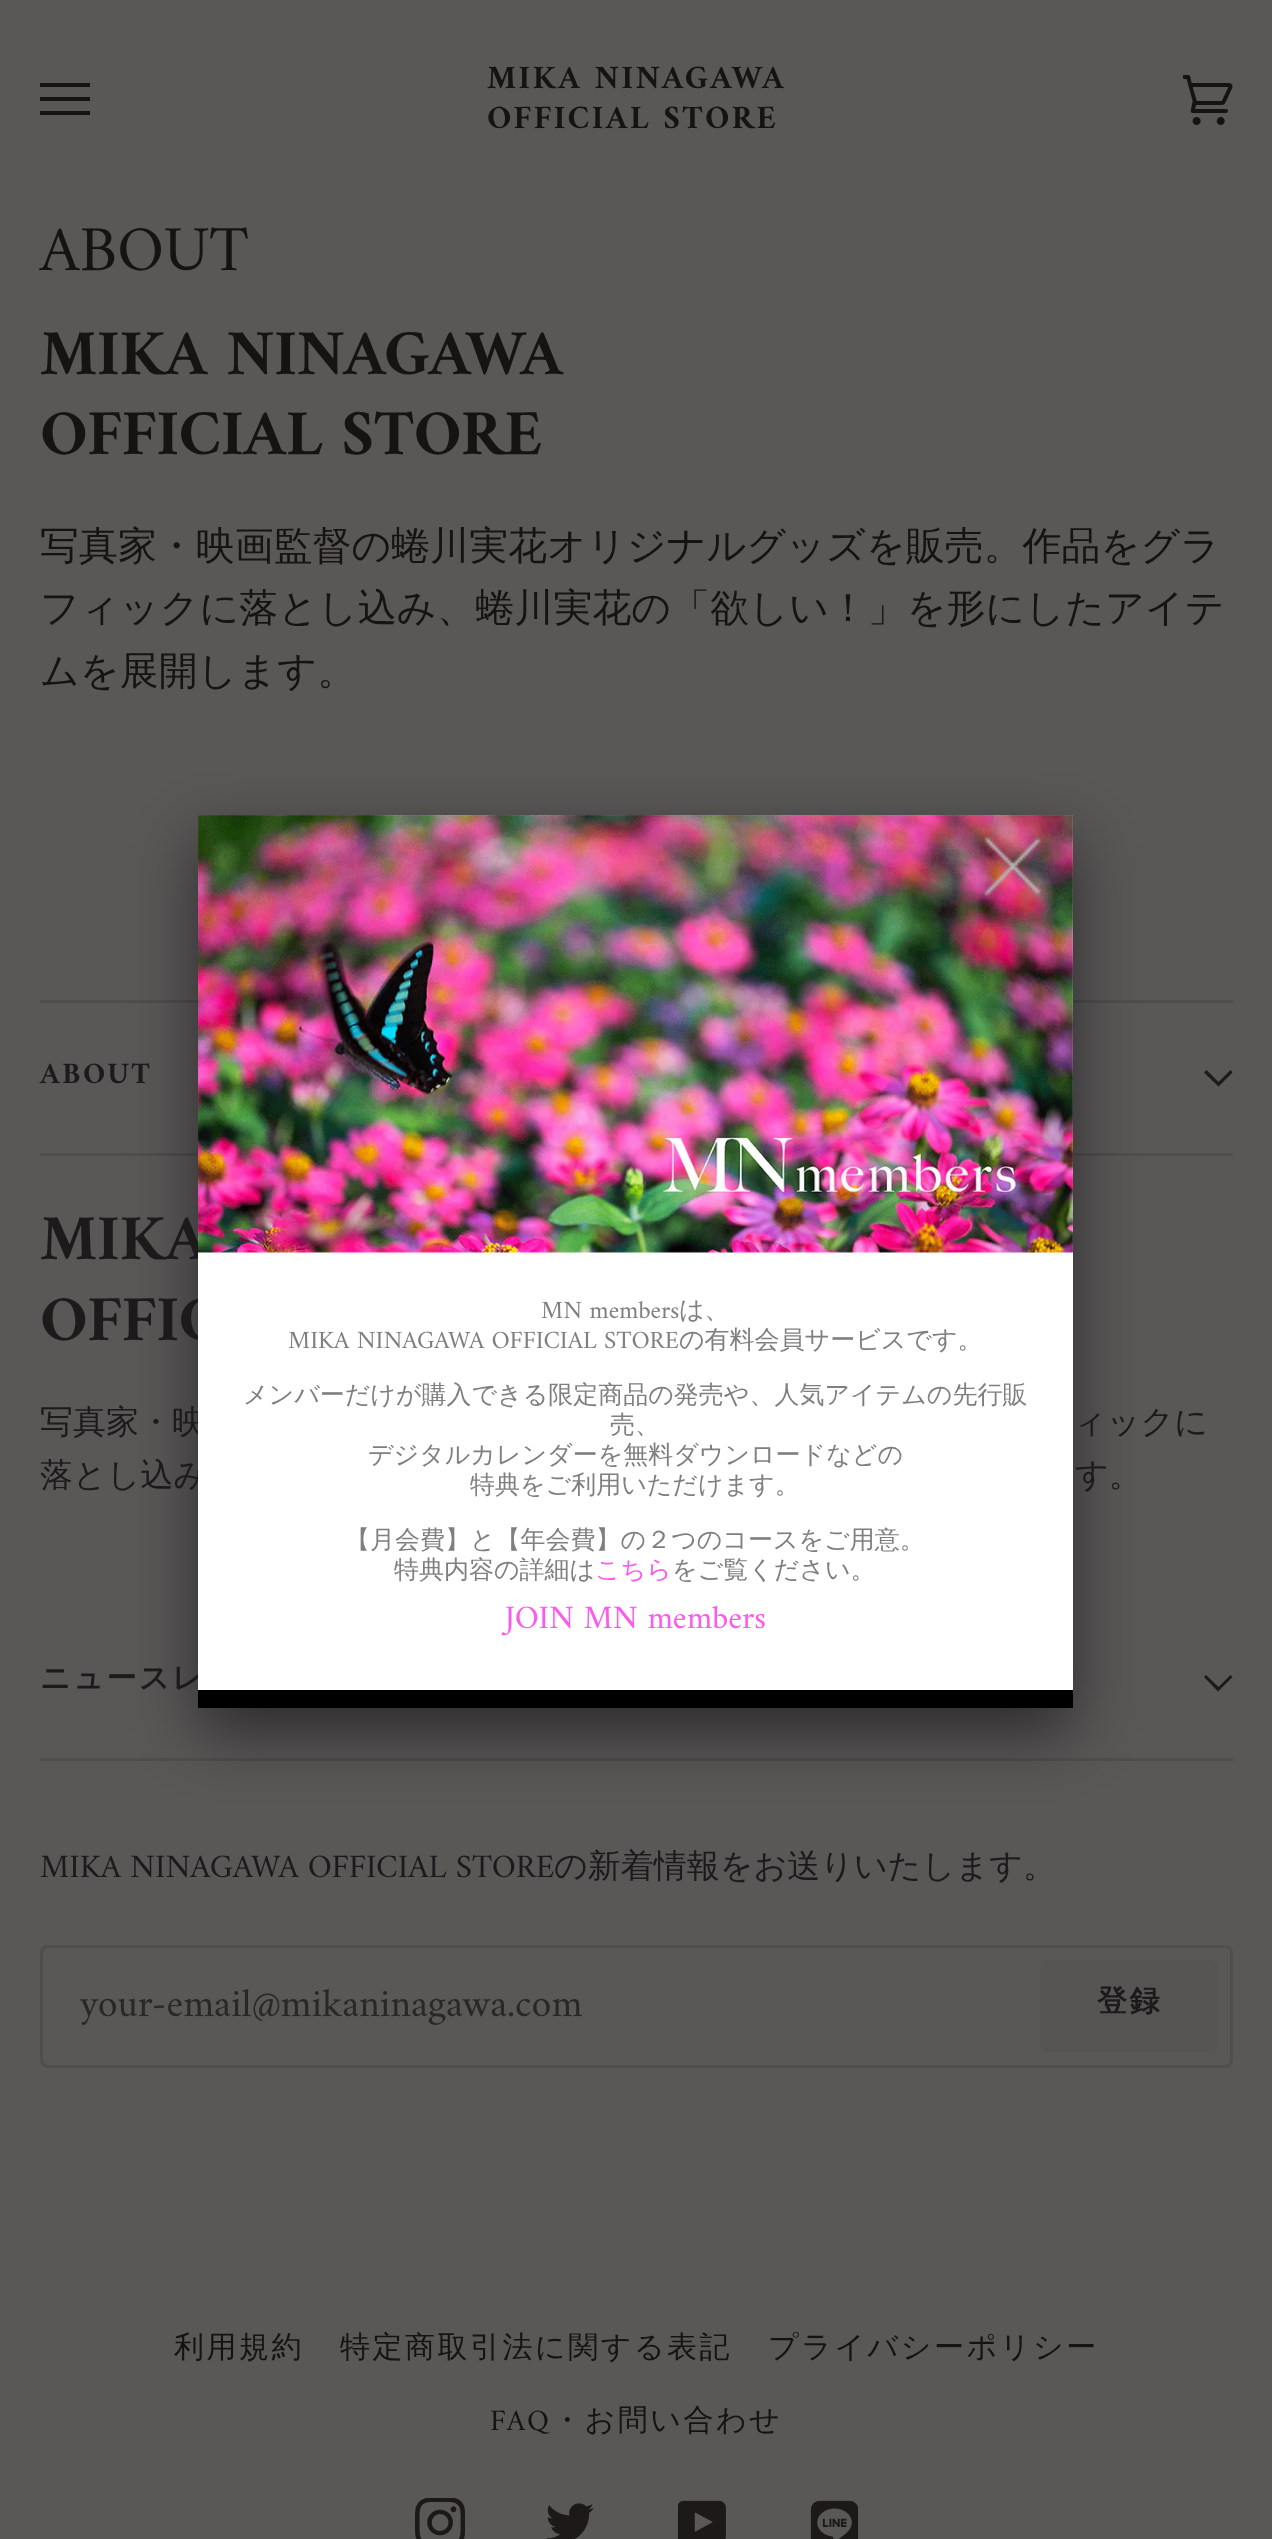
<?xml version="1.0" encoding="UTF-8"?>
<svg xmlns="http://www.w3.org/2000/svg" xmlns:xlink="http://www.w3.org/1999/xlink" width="1272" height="2539">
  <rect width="100%" height="100%" fill="#5a5757" />
  <path d="M 40 83 h 50 v 4 h -50 z m 0 14 h 50 v 4 h -50 z m 0 14 h 50 v 4 h -50 z" fill="#161313" />
  <image x="1183" y="75" width="50" height="50" xlink:href="image1.png" />
  <rect x="40" y="1000" width="1193" height="3" fill="#504d4d" />
  <rect x="40" y="1153" width="1193" height="3" fill="#504d4d" />
  <path d="M 1218.5 1082 l 12 -12 l 2 2.5 l -14 14 l -14.5 -14 l 2.5 -2.5 z" fill="#1c1a1a" fill-rule="evenodd" />
  <rect x="40" y="1758" width="1193" height="3" fill="#504d4d" />
  <path d="M 1218.5 1687 l 12 -12 l 2 2 l -14.5 14.5 l -14 -14.5 l 2 -2 z" fill="#1c1a1a" fill-rule="evenodd" />
  <rect x="41.5" y="1946.5" width="1190" height="120" rx="6.5" fill="none" stroke="#504d4d" stroke-width="3" />
  <rect x="1040" y="1960" width="178" height="93" rx="8" fill="#575454" />
  <image x="415" y="2498" width="50" height="41" xlink:href="image2.png" />
  <image x="546" y="2503" width="48" height="36" xlink:href="image3.png" />
  <image x="678" y="2500" width="48" height="39" xlink:href="image4.png" />
  <image x="810" y="2500" width="48" height="39" xlink:href="image5.png" />
  <rect x="198" y="840" width="875" height="893" rx="10" fill="#000000" fill-opacity="0.5" filter="blur(31px)" />
  <rect x="198" y="1690" width="875" height="18" fill="#000000" />
  <text x="487" y="88" style="font-family: Amiri; font-size: 32.9px; font-weight: bold; letter-spacing: 2.5px; fill: #161313">MIKA NINAGAWA</text>
  <text x="487" y="128" style="font-family: Amiri; font-size: 32.9px; font-weight: bold; letter-spacing: 2.5px; fill: #161313">OFFICIAL STORE</text>
  <text x="40" y="270" style="font-family: Amiri; font-size: 64.5px; fill: #161313">ABOUT</text>
  <text x="40" y="374" style="font-family: Amiri; font-size: 64.5px; font-weight: bold; fill: #161313">MIKA NINAGAWA</text>
  <text x="40" y="454" style="font-family: Amiri; font-size: 64.5px; font-weight: bold; fill: #161313">OFFICIAL STORE</text>
  <text x="40" y="559" style="font-family: WenQuanYi Zen Hei; font-size: 38.95px; font-weight: 500; fill: #161313">写真家・映画監督の蜷川実花オリジナルグッズを販売。作品をグラ</text>
  <text x="40" y="621" style="font-family: WenQuanYi Zen Hei; font-size: 38.95px; font-weight: 500; fill: #161313">フィックに落とし込み、蜷川実花の「欲しい！」を形にしたアイテ</text>
  <text x="40" y="684" style="font-family: WenQuanYi Zen Hei; font-size: 38.95px; font-weight: 500; fill: #161313">ムを展開します。</text>
  <text x="40" y="1083" style="font-family: Amiri; font-size: 30px; font-weight: bold; letter-spacing: 2.5px; fill: #1c1a1a">ABOUT</text>
  <text x="40" y="1259" style="font-family: Amiri; font-size: 64.5px; font-weight: bold; fill: #1c1a1a">MIKA</text>
  <text x="40" y="1340" style="font-family: Amiri; font-size: 64.5px; font-weight: bold; fill: #1c1a1a">OFFIC</text>
  <text x="40" y="1433" style="font-family: WenQuanYi Zen Hei; font-size: 33px; font-weight: 500; fill: #1c1a1a">写真家・映</text>
  <text x="1073" y="1433" style="font-family: WenQuanYi Zen Hei; font-size: 33px; font-weight: 500; fill: #1c1a1a">ィックに</text>
  <text x="40" y="1486" style="font-family: WenQuanYi Zen Hei; font-size: 33px; font-weight: 500; fill: #1c1a1a">落とし込み</text>
  <text x="1075" y="1486" style="font-family: WenQuanYi Zen Hei; font-size: 33px; font-weight: 500; fill: #1c1a1a">す。</text>
  <text x="40" y="1688" style="font-family: WenQuanYi Zen Hei; font-size: 30px; font-weight: bold; letter-spacing: 2.5px; fill: #1c1a1a">ニュースレ</text>
  <text x="40" y="1877" word-spacing="-0.5" style="font-family: Amiri; font-size: 33px; fill: #1c1a1a">MIKA NINAGAWA OFFICIAL STORE</text>
  <text x="554" y="1877" style="font-family: WenQuanYi Zen Hei; font-size: 33px; font-weight: 500; fill: #1c1a1a">の新着情報をお送りいたします。</text>
  <text x="80" y="2016" style="font-family: Amiri; font-size: 40px; fill: #2a2727">your-email@mikaninagawa.com</text>
  <text x="1097" y="2011" style="font-family: WenQuanYi Zen Hei; font-size: 30px; font-weight: bold; letter-spacing: 2.5px; fill: #1c1a1a">登録</text>
  <text x="174" y="2357" style="font-family: WenQuanYi Zen Hei; font-size: 30px; font-weight: 500; letter-spacing: 2.5px; fill: #161313">利用規約</text>
  <text x="340" y="2357" style="font-family: WenQuanYi Zen Hei; font-size: 30px; font-weight: 500; letter-spacing: 2.5px; fill: #161313">特定商取引法に関する表記</text>
  <text x="768" y="2357" style="font-family: WenQuanYi Zen Hei; font-size: 30px; font-weight: 500; letter-spacing: 2.5px; fill: #161313">プライバシーポリシー</text>
  <text x="490" y="2430" style="font-family: Amiri; font-size: 30px; letter-spacing: 2.5px; fill: #161313">FAQ</text>
  <text x="552" y="2430" style="font-family: WenQuanYi Zen Hei; font-size: 30px; font-weight: 500; letter-spacing: 2.5px; fill: #161313">・お問い合わせ</text>
  <image x="198" y="815" width="875" height="875" xlink:href="image7.png" />
  <image x="984" y="837" width="57" height="59" xlink:href="image6.png" />
  <text x="541" y="1318" style="font-family: Amiri; font-size: 25px; fill: #7f7f7f">MN members</text>
  <text x="679" y="1318" style="font-family: WenQuanYi Zen Hei; font-size: 25px; font-weight: 500; fill: #7f7f7f">は、</text>
  <text x="288" y="1348" style="font-family: Amiri; font-size: 25px; fill: #7f7f7f">MIKA NINAGAWA OFFICIAL STORE</text>
  <text x="679" y="1348" style="font-family: WenQuanYi Zen Hei; font-size: 25px; font-weight: 500; fill: #7f7f7f">の有料会員サービスです。</text>
  <text x="243" y="1403" style="font-family: WenQuanYi Zen Hei; font-size: 25px; font-weight: 500; fill: #7f7f7f">メンバーだけが購入できる限定商品の発売や、人気アイテムの先行販</text>
  <text x="610" y="1433" style="font-family: WenQuanYi Zen Hei; font-size: 25px; font-weight: 500; fill: #7f7f7f">売、</text>
  <text x="368" y="1463" style="font-family: WenQuanYi Zen Hei; font-size: 25px; font-weight: 500; fill: #7f7f7f">デジタルカレンダーを無料ダウンロードなどの</text>
  <text x="470" y="1493" style="font-family: WenQuanYi Zen Hei; font-size: 25px; font-weight: 500; fill: #7f7f7f">特典をご利用いただけます。</text>
  <text x="345" y="1548" style="font-family: WenQuanYi Zen Hei; font-size: 25px; font-weight: 500; fill: #7f7f7f">【月会費】と【年会費】の２つのコースをご用意。</text>
  <text x="394" y="1578" style="font-family: WenQuanYi Zen Hei; font-size: 25px; font-weight: 500; fill: #7f7f7f">特典内容の詳細は</text>
  <text x="595" y="1578" style="font-family: WenQuanYi Zen Hei; font-size: 25px; font-weight: 500; fill: #ff58ed">こちら</text>
  <text x="672" y="1578" style="font-family: WenQuanYi Zen Hei; font-size: 25px; font-weight: 500; fill: #7f7f7f">をご覧ください。</text>
  <text x="505" y="1628" style="font-family: Amiri; font-size: 33px; fill: #ff58ed">JOIN MN members</text>
</svg>
